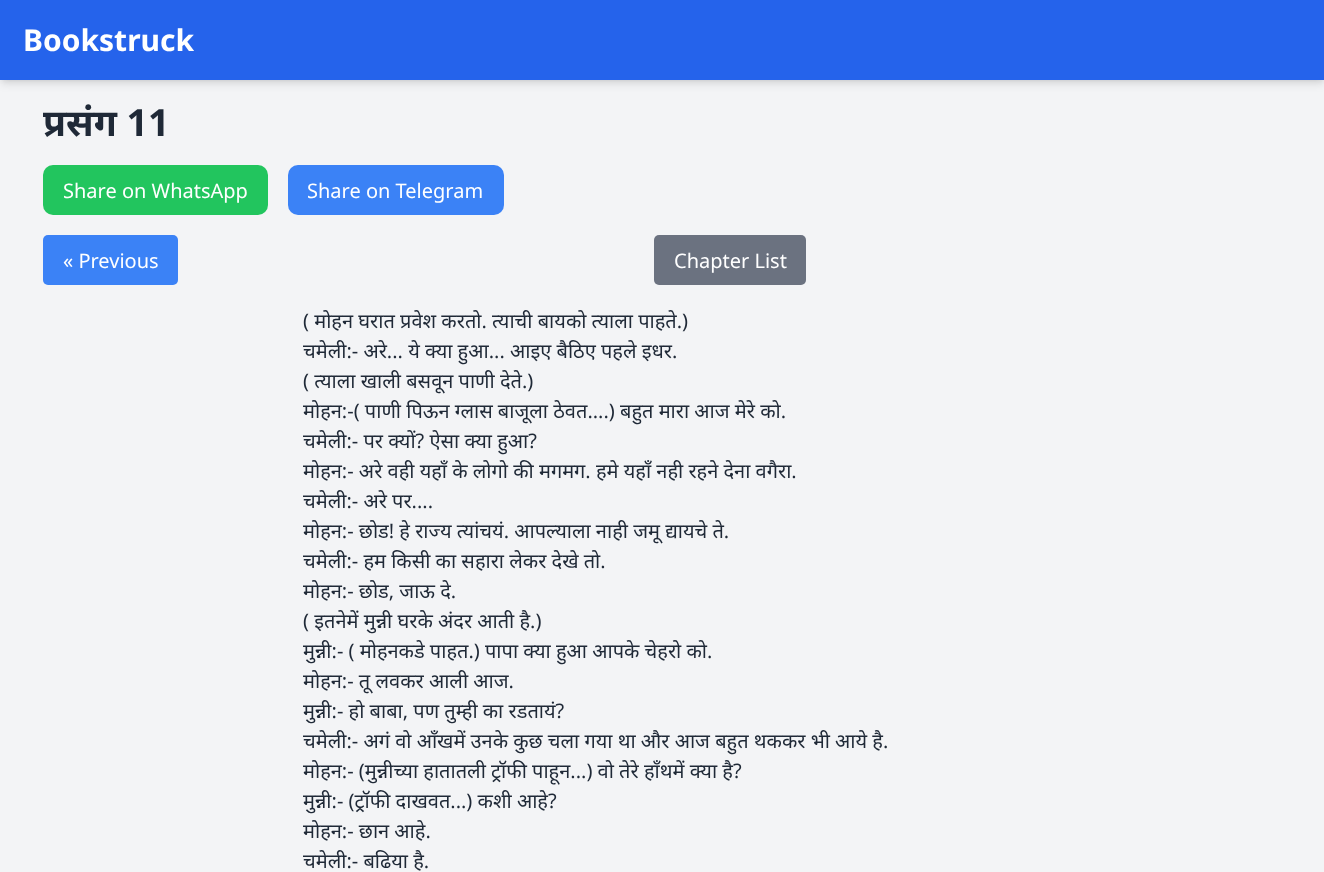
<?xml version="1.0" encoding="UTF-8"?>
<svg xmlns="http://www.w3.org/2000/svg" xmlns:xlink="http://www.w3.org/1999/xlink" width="1324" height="872">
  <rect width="100%" height="100%" fill="#f3f4f6" />
  <rect x="3" y="5" width="1320" height="75" fill="#000000" fill-opacity="0.1" filter="blur(2.5px)" />
  <rect x="1" y="6" width="1323" height="78" fill="#000000" fill-opacity="0.1" filter="blur(4px)" />
  <rect width="1324" height="80" fill="#2563eb" />
  <rect x="43" y="165" width="225" height="50" rx="10" fill="#22c55e" />
  <rect x="288" y="165" width="216" height="50" rx="10" fill="#3b82f6" />
  <rect x="43" y="235" width="135" height="50" rx="5" fill="#3b82f6" />
  <rect x="654" y="235" width="152" height="50" rx="5" fill="#6b7280" />
  <text x="23" y="51" style="font-family: Noto Sans; font-size: 30px; font-weight: bold; fill: #ffffff">Bookstruck</text>
  <text x="43" y="136" style="font-family: Noto Sans; font-size: 37.5px; font-weight: bold; fill: #1f2937">प्रसंग 11</text>
  <text x="63" y="198" style="font-family: Noto Sans; font-size: 20px; fill: #ffffff">Share on WhatsApp</text>
  <text x="307" y="198" style="font-family: Noto Sans; font-size: 20px; fill: #ffffff">Share on Telegram</text>
  <text x="63" y="268" style="font-family: Noto Sans; font-size: 20px; fill: #ffffff">« Previous</text>
  <text x="674" y="268" style="font-family: Noto Sans; font-size: 20px; fill: #ffffff">Chapter List</text>
  <text x="303" y="328" style="font-family: Noto Sans; font-size: 20px; fill: #1f2937">( मोहन घरात प्रवेश करतो. त्याची बायको त्याला पाहते.)</text>
  <text x="303" y="358" style="font-family: Noto Sans; font-size: 20px; fill: #1f2937">चमेली:- अरे... ये क्या हुआ... आइए बैठिए पहले इधर.</text>
  <text x="303" y="388" style="font-family: Noto Sans; font-size: 20px; fill: #1f2937">( त्याला खाली बसवून पाणी देते.)</text>
  <text x="303" y="418" style="font-family: Noto Sans; font-size: 20px; fill: #1f2937">मोहन:-( पाणी पिऊन ग्लास बाजूला ठेवत....) बहुत मारा आज मेरे को.</text>
  <text x="303" y="448" style="font-family: Noto Sans; font-size: 20px; fill: #1f2937">चमेली:- पर क्यों? ऐसा क्या हुआ?</text>
  <text x="303" y="478" style="font-family: Noto Sans; font-size: 20px; fill: #1f2937">मोहन:- अरे वही यहाँ के लोगो की मगमग. हमे यहाँ नही रहने देना वगैरा.</text>
  <text x="303" y="508" style="font-family: Noto Sans; font-size: 20px; fill: #1f2937">चमेली:- अरे पर....</text>
  <text x="303" y="538" style="font-family: Noto Sans; font-size: 20px; fill: #1f2937">मोहन:- छोड! हे राज्य त्यांचयं. आपल्याला नाही जमू द्यायचे ते.</text>
  <text x="303" y="568" style="font-family: Noto Sans; font-size: 20px; fill: #1f2937">चमेली:- हम किसी का सहारा लेकर देखे तो.</text>
  <text x="303" y="598" style="font-family: Noto Sans; font-size: 20px; fill: #1f2937">मोहन:- छोड, जाऊ दे.</text>
  <text x="303" y="628" style="font-family: Noto Sans; font-size: 20px; fill: #1f2937">( इतनेमें मुन्नी घरके अंदर आती है.)</text>
  <text x="303" y="658" style="font-family: Noto Sans; font-size: 20px; fill: #1f2937">मुन्नी:- ( मोहनकडे पाहत.) पापा क्या हुआ आपके चेहरो को.</text>
  <text x="303" y="688" style="font-family: Noto Sans; font-size: 20px; fill: #1f2937">मोहन:- तू लवकर आली आज.</text>
  <text x="303" y="718" style="font-family: Noto Sans; font-size: 20px; fill: #1f2937">मुन्नी:- हो बाबा, पण तुम्ही का रडतायं?</text>
  <text x="303" y="748" style="font-family: Noto Sans; font-size: 20px; fill: #1f2937">चमेली:- अगं वो आँखमें उनके कुछ चला गया था और आज बहुत थककर भी आये है.</text>
  <text x="303" y="778" style="font-family: Noto Sans; font-size: 20px; fill: #1f2937">मोहन:- (मुन्नीच्या हातातली ट्रॉफी पाहून...) वो तेरे हाँथमें क्या है?</text>
  <text x="303" y="808" style="font-family: Noto Sans; font-size: 20px; fill: #1f2937">मुन्नी:- (ट्रॉफी दाखवत...) कशी आहे?</text>
  <text x="303" y="838" style="font-family: Noto Sans; font-size: 20px; fill: #1f2937">मोहन:- छान आहे.</text>
  <text x="303" y="868" style="font-family: Noto Sans; font-size: 20px; fill: #1f2937">चमेली:- बढिया है.</text>
</svg>
